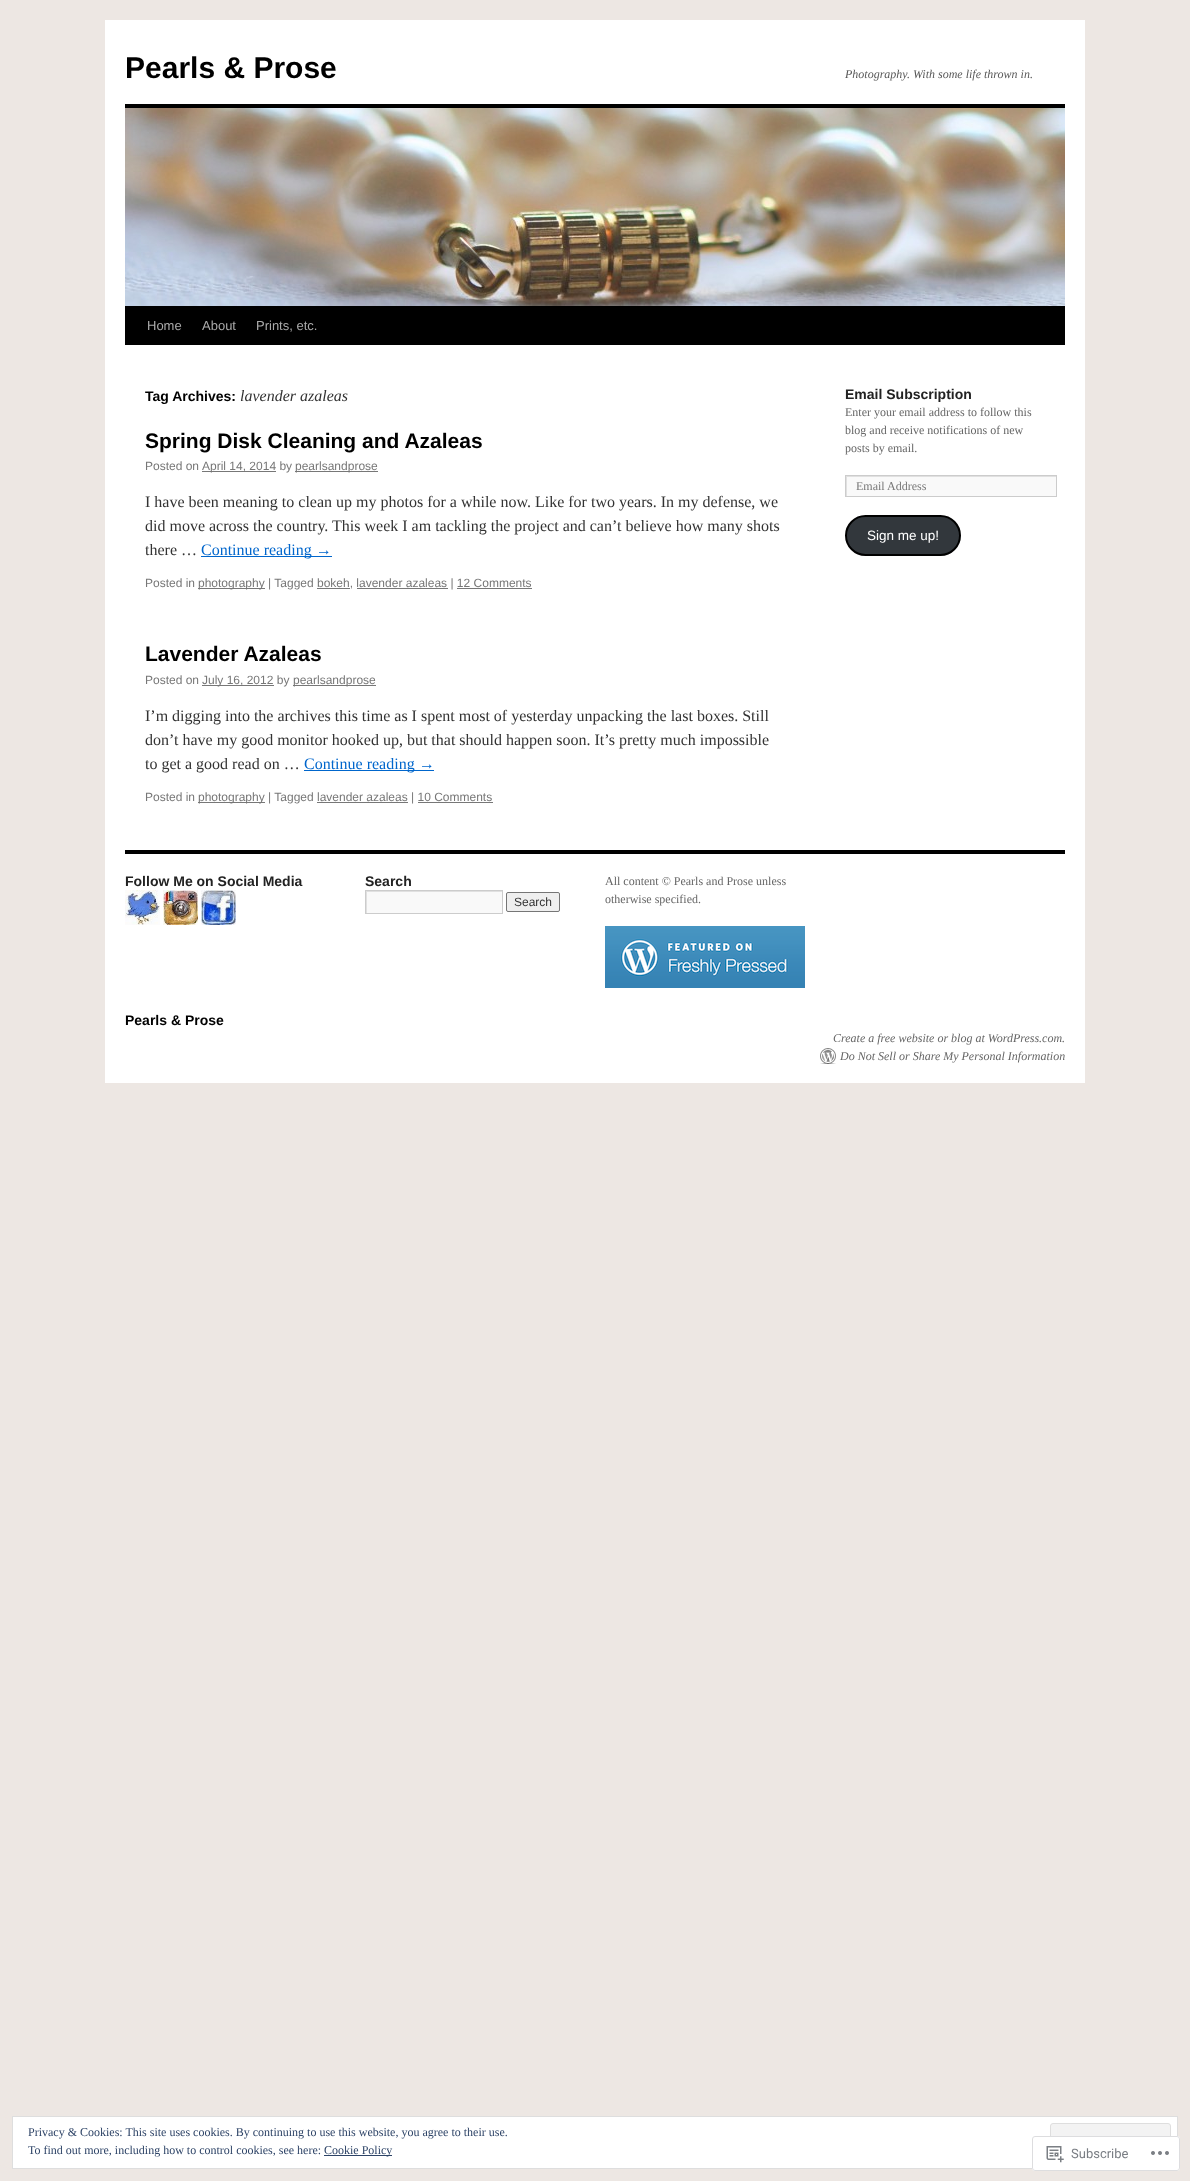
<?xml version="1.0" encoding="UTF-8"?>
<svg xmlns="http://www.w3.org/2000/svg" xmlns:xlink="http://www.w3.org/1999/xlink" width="1190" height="2181">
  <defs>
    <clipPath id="clip1"><rect x="846" y="476" width="210" height="20" /></clipPath>
    <clipPath id="clip2"><rect x="366" y="891" width="136" height="22" /></clipPath>
  </defs>
  <rect width="100%" height="100%" fill="#ede7e3" />
  <rect x="105" y="20" width="980" height="1063" fill="#ffffff" />
  <rect x="125" y="104" width="940" height="4" fill="#000000" />
  <rect x="125" y="306" width="940" height="39" fill="#000000" />
  <image x="125" y="108" width="940" height="198" xlink:href="image1.png" />
  <rect x="202" y="471" width="74" height="1" fill="#777777" />
  <rect x="295" y="471" width="83" height="1" fill="#777777" />
  <rect x="201" y="556" width="131" height="1" fill="#0066cc" />
  <rect x="198" y="588" width="67" height="1" fill="#777777" />
  <rect x="317" y="588" width="33" height="1" fill="#777777" />
  <rect x="357" y="588" width="91" height="1" fill="#777777" />
  <rect x="457" y="588" width="75" height="1" fill="#777777" />
  <rect x="202" y="685" width="72" height="1" fill="#777777" />
  <rect x="293" y="685" width="83" height="1" fill="#777777" />
  <rect x="304" y="770" width="130" height="1" fill="#0066cc" />
  <rect x="198" y="802" width="67" height="1" fill="#777777" />
  <rect x="317" y="802" width="91" height="1" fill="#777777" />
  <rect x="418" y="802" width="75" height="1" fill="#777777" />
  <rect x="847" y="477" width="209" height="19" fill="#f9f9f9" />
  <g clip-path="url(#clip1)">
    <path d="M 747 377 h 408 v 218 h -408 z m 100 100 h 210 v 20 h -210 z" fill="#e0e0e0" fill-rule="evenodd" />
  </g>
  <rect x="845.5" y="475.5" width="211" height="21" fill="none" stroke="#cccccc" />
  <rect x="846" y="516" width="114" height="39" rx="19.5" fill="#32373c" stroke="#000000" stroke-width="2" />
  <rect x="125" y="850" width="940" height="4" fill="#000000" />
  <image x="125" y="890" width="35" height="35" xlink:href="image2.png" />
  <image x="163" y="890" width="35" height="35" xlink:href="image3.png" />
  <image x="201" y="890" width="35" height="35" xlink:href="image4.png" />
  <rect x="367" y="892" width="135" height="21" fill="#f9f9f9" />
  <g clip-path="url(#clip2)">
    <path d="M 267 792 h 334 v 220 h -334 z m 100 100 h 136 v 22 h -136 z" fill="#e0e0e0" fill-rule="evenodd" />
  </g>
  <rect x="365.5" y="890.5" width="137" height="23" fill="none" stroke="#cccccc" />
  <rect x="506.5" y="892.5" width="53" height="19" rx="1.5" fill="#efefef" stroke="#767676" />
  <image x="605" y="926" width="200" height="62" xlink:href="image5.png" />
  <image x="820" y="1048" width="16" height="16" xlink:href="image6.png" />
  <rect x="12.5" y="2116.5" width="1165" height="52" fill="#ffffff" stroke="#dedede" />
  <rect x="1050.5" y="2123.5" width="120" height="38" rx="2.5" fill="#f3f3f3" stroke="#dedede" />
  <rect x="324" y="2155" width="68" height="1" fill="#2e4467" />
  <rect x="1032" y="2136" width="148" height="35" rx="3" fill="#ffffff" fill-opacity="0.98" />
  <rect x="1032.5" y="2136.5" width="147" height="34" rx="2.5" fill="none" stroke="#dcdcde" stroke-opacity="0.98" />
  <image x="1046" y="2146" width="18" height="17" xlink:href="image7.png" />
  <image x="1151" y="2151" width="18" height="4" xlink:href="image8.png" />
  <text x="125" y="78" style="font-family: Liberation Sans; font-size: 30px; font-weight: bold; fill: #000000">Pearls &amp; Prose</text>
  <text x="845" y="78" style="font-family: Liberation Serif; font-size: 12px; font-style: italic; fill: #595959">Photography. With some life thrown in.</text>
  <text x="147" y="330" style="font-family: Liberation Sans; font-size: 13px; fill: #aaaaaa">Home</text>
  <text x="202" y="330" style="font-family: Liberation Sans; font-size: 13px; fill: #aaaaaa">About</text>
  <text x="256" y="330" style="font-family: Liberation Sans; font-size: 13px; fill: #aaaaaa">Prints, etc.</text>
  <text x="145" y="401" style="font-family: Liberation Sans; font-size: 14px; font-weight: bold; fill: #000000">Tag Archives:</text>
  <text x="240" y="401" style="font-family: Liberation Serif; font-size: 16px; font-style: italic; fill: #333333">lavender azaleas</text>
  <text x="145" y="448" style="font-family: Liberation Sans; font-size: 21px; font-weight: bold; fill: #000000">Spring Disk Cleaning and Azaleas</text>
  <text x="145" y="470" style="font-family: Liberation Sans; font-size: 12px; fill: #777777">Posted on</text>
  <text x="202" y="470" style="font-family: Liberation Sans; font-size: 12px; fill: #777777">April 14, 2014 by</text>
  <text x="295" y="470" style="font-family: Liberation Sans; font-size: 12px; fill: #777777">pearlsandprose</text>
  <text x="145" y="507" style="font-family: Liberation Serif; font-size: 16px; fill: #333333">I have been meaning to clean up my photos for a while now. Like for two years. In my defense, we</text>
  <text x="145" y="531" style="font-family: Liberation Serif; font-size: 16px; fill: #333333">did move across the country. This week I am tackling the project and can’t believe how many shots</text>
  <text x="145" y="555" style="font-family: Liberation Serif; font-size: 16px; fill: #333333">there …</text>
  <text x="201" y="555" style="font-family: Liberation Serif; font-size: 16px; fill: #0066cc">Continue reading →</text>
  <text x="145" y="587" style="font-family: Liberation Sans; font-size: 12px; fill: #777777">Posted in</text>
  <text x="198" y="587" style="font-family: Liberation Sans; font-size: 12px; fill: #777777">photography | Tagged bokeh, lavender azaleas | 12 Comments</text>
  <text x="145" y="661" style="font-family: Liberation Sans; font-size: 21px; font-weight: bold; fill: #000000">Lavender Azaleas</text>
  <text x="145" y="684" style="font-family: Liberation Sans; font-size: 12px; fill: #777777">Posted on</text>
  <text x="202" y="684" style="font-family: Liberation Sans; font-size: 12px; fill: #777777">July 16, 2012 by</text>
  <text x="293" y="684" style="font-family: Liberation Sans; font-size: 12px; fill: #777777">pearlsandprose</text>
  <text x="145" y="721" style="font-family: Liberation Serif; font-size: 16px; fill: #333333">I’m digging into the archives this time as I spent most of yesterday unpacking the last boxes. Still</text>
  <text x="145" y="745" style="font-family: Liberation Serif; font-size: 16px; fill: #333333">don’t have my good monitor hooked up, but that should happen soon. It’s pretty much impossible</text>
  <text x="145" y="769" style="font-family: Liberation Serif; font-size: 16px; fill: #333333">to get a good read on …</text>
  <text x="304" y="769" style="font-family: Liberation Serif; font-size: 16px; fill: #0066cc">Continue reading →</text>
  <text x="145" y="801" style="font-family: Liberation Sans; font-size: 12px; fill: #777777">Posted in</text>
  <text x="198" y="801" style="font-family: Liberation Sans; font-size: 12px; fill: #777777">photography | Tagged lavender azaleas | 10 Comments</text>
  <text x="845" y="399" style="font-family: Liberation Sans; font-size: 14px; font-weight: bold; fill: #222222">Email Subscription</text>
  <text x="845" y="416" style="font-family: Liberation Serif; font-size: 12px; fill: #666666">Enter your email address to follow this</text>
  <text x="845" y="434" style="font-family: Liberation Serif; font-size: 12px; fill: #666666">blog and receive notifications of new</text>
  <text x="845" y="452" style="font-family: Liberation Serif; font-size: 12px; fill: #666666">posts by email.</text>
  <text x="856" y="490" style="font-family: Liberation Serif; font-size: 12px; fill: #777777">Email Address</text>
  <text x="867" y="540" style="font-family: Liberation Sans; font-size: 13.5px; fill: #ffffff">Sign me up!</text>
  <text x="125" y="886" style="font-family: Liberation Sans; font-size: 14px; font-weight: bold; fill: #222222">Follow Me on Social Media</text>
  <text x="365" y="886" style="font-family: Liberation Sans; font-size: 14px; font-weight: bold; fill: #222222">Search</text>
  <text x="514" y="906" style="font-family: Liberation Sans; font-size: 12px; fill: #333333">Search</text>
  <text x="605" y="885" style="font-family: Liberation Serif; font-size: 12px; fill: #666666">All content © Pearls and Prose unless</text>
  <text x="605" y="903" style="font-family: Liberation Serif; font-size: 12px; fill: #666666">otherwise specified.</text>
  <text x="125" y="1025" style="font-family: Liberation Sans; font-size: 14px; font-weight: bold; fill: #000000">Pearls &amp; Prose</text>
  <text x="833" y="1042" style="font-family: Liberation Serif; font-size: 12px; font-style: italic; fill: #666666">Create a free website or blog at WordPress.com.</text>
  <text x="840" y="1060" style="font-family: Liberation Serif; font-size: 12px; font-style: italic; fill: #666666">Do Not Sell or Share My Personal Information</text>
  <text x="28" y="2136" style="font-family: Liberation Serif; font-size: 12px; fill: #2e4467">Privacy &amp; Cookies: This site uses cookies. By continuing to use this website, you agree to their use.</text>
  <text x="28" y="2154" style="font-family: Liberation Serif; font-size: 12px; fill: #2e4467">To find out more, including how to control cookies, see here:</text>
  <text x="324" y="2154" style="font-family: Liberation Serif; font-size: 12px; fill: #2e4467">Cookie Policy</text>
  <text x="1071" y="2158" style="font-family: Roboto; font-size: 13px; fill: #7a7e84">Subscribe</text>
</svg>
